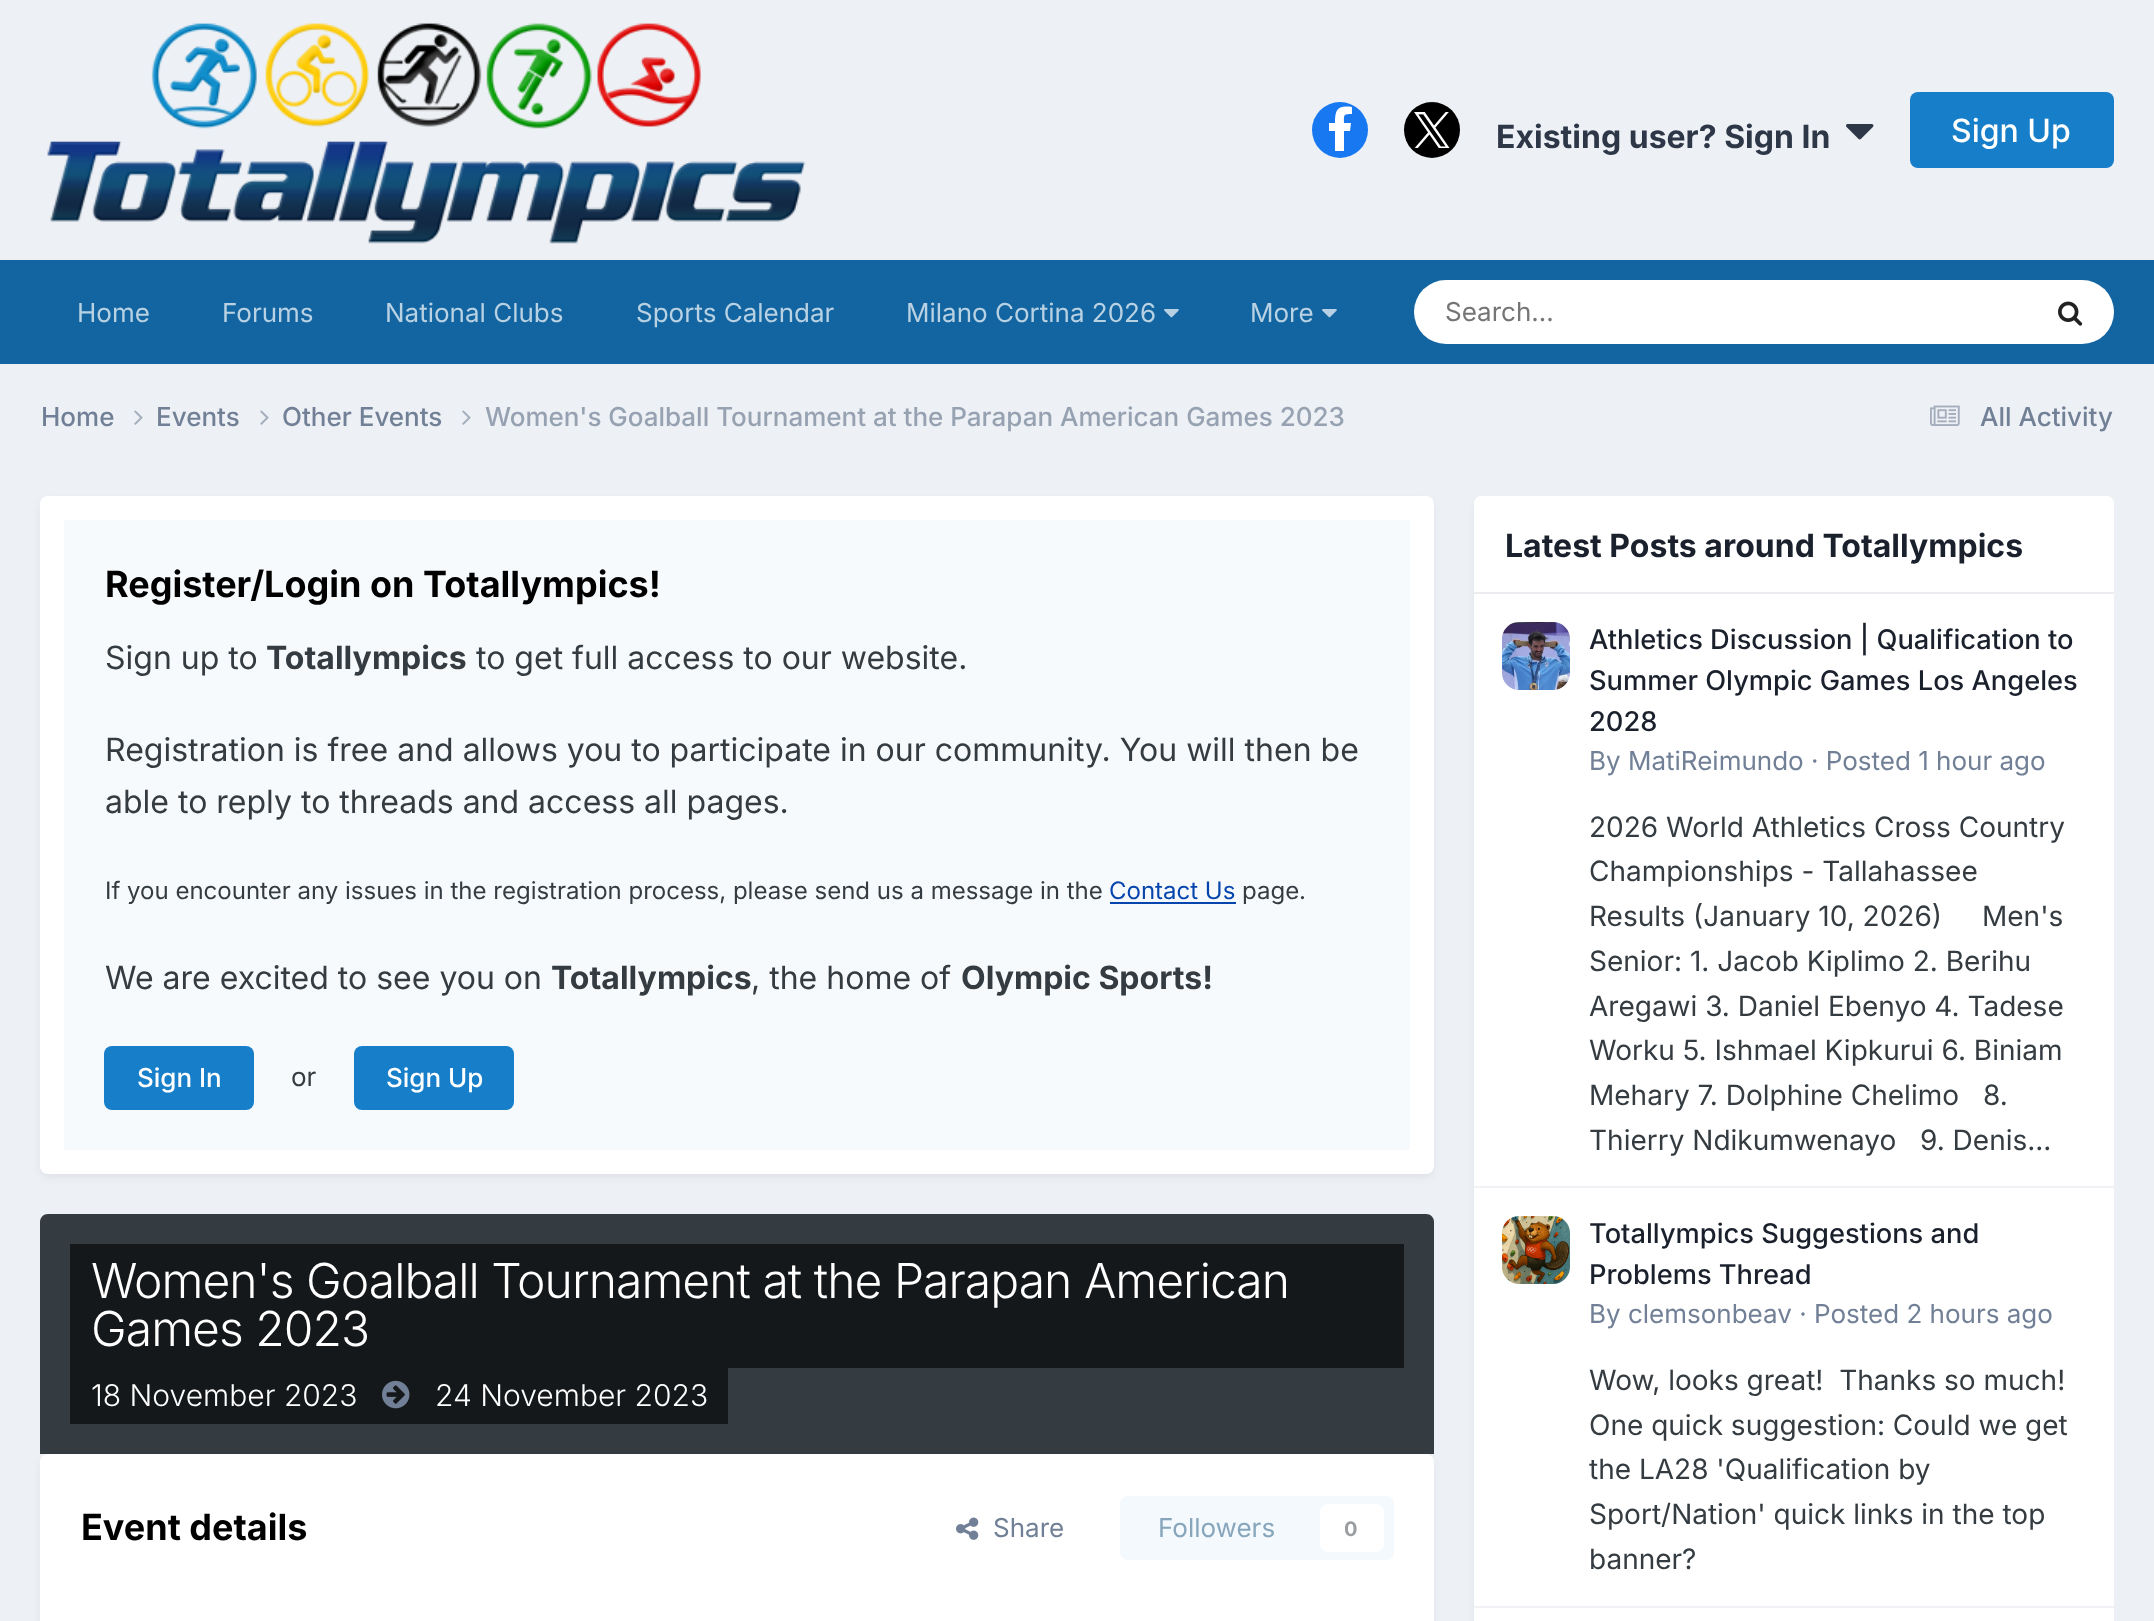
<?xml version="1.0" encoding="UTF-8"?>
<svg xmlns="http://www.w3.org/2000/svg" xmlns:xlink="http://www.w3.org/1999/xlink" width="2154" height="1621">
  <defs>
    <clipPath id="clip1"><rect x="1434" y="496" width="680" height="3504" /></clipPath>
  </defs>
  <rect width="100%" height="100%" fill="#edf0f4" />
  <image x="47" y="23" width="759" height="221" xlink:href="image1.png" />
  <circle cx="1340" cy="130" r="28" fill="#1778f2" />
  <path d="M 1352 107 v 7 c -9 0 -8 1 -8 9 h 7 l -1 8 h -6 v 20 h -9 v -20 h -6 v -8 h 6 c 0 -13 2 -18 17 -16 z" fill="#ffffff" />
  <circle cx="1432" cy="130" r="28" fill="#000000" />
  <image x="1414" y="112" width="36" height="36" xlink:href="image2.png" />
  <image x="1846" y="124" width="28" height="16" xlink:href="image3.png" />
  <rect x="1910" y="92" width="204" height="76" rx="8" fill="#177ec9" />
  <rect y="260" width="2154" height="104" fill="#1265a1" />
  <image x="1164" y="309" width="15" height="9" xlink:href="image4.png" />
  <image x="1322" y="309" width="15" height="9" xlink:href="image4.png" />
  <rect x="1414" y="280" width="700" height="64" rx="32" fill="#ffffff" />
  <image x="2058" y="301" width="25" height="25" xlink:href="image5.png" />
  <image x="134" y="410" width="9" height="15" xlink:href="image6.png" />
  <image x="260" y="410" width="9" height="15" xlink:href="image6.png" />
  <image x="462" y="410" width="9" height="15" xlink:href="image6.png" />
  <image x="1930" y="405" width="30" height="21" xlink:href="image7.png" />
  <rect x="42" y="502" width="1390" height="674" rx="6" fill="#2d3748" fill-opacity="0.1" filter="blur(4px)" />
  <rect x="40" y="496" width="1394" height="678" rx="8" fill="#ffffff" />
  <rect x="64" y="520" width="1346" height="630" fill="#f7fafc" />
  <rect x="1110" y="902" width="126" height="2" fill="#0645ad" />
  <rect x="104" y="1046" width="150" height="64" rx="8" fill="#177ec9" />
  <rect x="354" y="1046" width="160" height="64" rx="8" fill="#177ec9" />
  <rect x="42" y="1460" width="1390" height="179" rx="6" fill="#2d3748" fill-opacity="0.1" filter="blur(4px)" />
  <path d="M 48 1214 h 1378 c 4.5 0 8 3.5 8 8 v 232 h -1394 v -232 c 0 -4.5 3.5 -8 8 -8 z" fill="#353c41" />
  <rect x="70" y="1244" width="1334" height="124" fill="#15181a" />
  <rect x="70" y="1368" width="658" height="56" fill="#15181a" />
  <image x="382" y="1380" width="28" height="29" xlink:href="image8.png" />
  <rect x="40" y="1454" width="1394" height="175" rx="8" fill="#ffffff" />
  <image x="956" y="1517" width="23" height="23" xlink:href="image9.png" />
  <rect x="1120" y="1496" width="274" height="64" rx="8" fill="#f4f9fd" />
  <rect x="1320" y="1504" width="64" height="48" rx="8" fill="#ffffff" />
  <g clip-path="url(#clip1)">
    <rect x="1476" y="502" width="636" height="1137" rx="6" fill="#2d3748" fill-opacity="0.1" filter="blur(4px)" />
  </g>
  <rect x="1474" y="496" width="640" height="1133" rx="8" fill="#ffffff" />
  <path d="M 1482 496 h 624 c 4.5 0 8 3.5 8 8 v 90 h -640 v -90 c 0 -4.5 3.5 -8 8 -8 z" fill="#ffffff" />
  <rect x="1474" y="592" width="640" height="2" fill="#eaecef" />
  <rect x="1474" y="1186" width="640" height="2" fill="#f1f2f5" />
  <image x="1502" y="622" width="68" height="68" xlink:href="image10.png" />
  <rect x="1474" y="1606" width="640" height="2" fill="#f1f2f5" />
  <image x="1502" y="1216" width="68" height="68" xlink:href="image11.png" />
  <text x="1496" y="148" style="font-family: Inter; font-size: 32px; font-weight: bold; fill: #2d3748">Existing user? Sign In</text>
  <text x="1951" y="142" style="font-family: Inter; font-size: 32px; font-weight: 500; fill: #ffffff">Sign Up</text>
  <text x="77" y="322" style="font-family: Inter; font-size: 26px; fill: #b8d1e3">Home</text>
  <text x="222" y="322" style="font-family: Inter; font-size: 26px; fill: #b8d1e3">Forums</text>
  <text x="385" y="322" style="font-family: Inter; font-size: 26px; fill: #b8d1e3">National Clubs</text>
  <text x="636" y="322" style="font-family: Inter; font-size: 26px; fill: #b8d1e3">Sports Calendar</text>
  <text x="906" y="322" style="font-family: Inter; font-size: 26px; fill: #b8d1e3">Milano Cortina 2026</text>
  <text x="1250" y="322" style="font-family: Inter; font-size: 26px; fill: #b8d1e3">More</text>
  <text x="1445" y="321" style="font-family: Inter; font-size: 26px; fill: #757575">Search...</text>
  <text x="41" y="426" style="font-family: Inter; font-size: 26px; font-weight: 500; fill: #718096">Home</text>
  <text x="156" y="426" style="font-family: Inter; font-size: 26px; font-weight: 500; fill: #718096">Events</text>
  <text x="282" y="426" style="font-family: Inter; font-size: 26px; font-weight: 500; fill: #718096">Other Events</text>
  <text x="485" y="426" style="font-family: Inter; font-size: 26px; font-weight: 500; fill: #96a2b2">Women's Goalball Tournament at the Parapan American Games 2023</text>
  <text x="1980" y="426" style="font-family: Inter; font-size: 26px; font-weight: 500; fill: #718096">All Activity</text>
  <text x="105" y="597" style="font-family: Inter; font-size: 36px; font-weight: bold; fill: #000000">Register/Login on Totallympics!</text>
  <text x="105" y="669" style="font-family: Inter; font-size: 32px; fill: #353c41">Sign up to</text>
  <text x="266" y="669" style="font-family: Inter; font-size: 32px; font-weight: bold; fill: #353c41">Totallympics</text>
  <text x="476" y="669" style="font-family: Inter; font-size: 32px; fill: #353c41">to get full access to our website.</text>
  <text x="105" y="761" style="font-family: Inter; font-size: 32px; fill: #353c41">Registration is free and allows you to participate in our community. You will then be</text>
  <text x="105" y="813" style="font-family: Inter; font-size: 32px; fill: #353c41">able to reply to threads and access all pages.</text>
  <text x="105" y="899" style="font-family: Inter; font-size: 24px; fill: #353c41">If you encounter any issues in the registration process, please send us a message in the</text>
  <text x="1109" y="899" style="font-family: Inter; font-size: 24px; fill: #0645ad">Contact Us</text>
  <text x="1242" y="899" style="font-family: Inter; font-size: 24px; fill: #353c41">page.</text>
  <text x="105" y="989" style="font-family: Inter; font-size: 32px; fill: #353c41">We are excited to see you on</text>
  <text x="551" y="989" style="font-family: Inter; font-size: 32px; font-weight: bold; fill: #353c41">Totallympics</text>
  <text x="751" y="989" style="font-family: Inter; font-size: 32px; fill: #353c41">, the home of</text>
  <text x="961" y="989" style="font-family: Inter; font-size: 32px; font-weight: bold; fill: #353c41">Olympic Sports!</text>
  <text x="137" y="1087" style="font-family: Inter; font-size: 26px; font-weight: 500; fill: #ffffff">Sign In</text>
  <text x="291" y="1086" style="font-family: Inter; font-size: 26px; fill: #353c41">or</text>
  <text x="386" y="1087" style="font-family: Inter; font-size: 26px; font-weight: 500; fill: #ffffff">Sign Up</text>
  <text x="91" y="1298" style="font-family: Inter; font-size: 48px; font-weight: 300; letter-spacing: -0.95px; fill: #ffffff">Women's Goalball Tournament at the Parapan American</text>
  <text x="91" y="1346" style="font-family: Inter; font-size: 48px; font-weight: 300; letter-spacing: -0.95px; fill: #ffffff">Games 2023</text>
  <text x="91" y="1406" style="font-family: Inter; font-size: 30px; font-weight: 300; fill: #ffffff">18 November 2023</text>
  <text x="435" y="1406" style="font-family: Inter; font-size: 30px; font-weight: 300; fill: #ffffff">24 November 2023</text>
  <text x="81" y="1540" style="font-family: Inter; font-size: 36px; font-weight: bold; fill: #000000">Event details</text>
  <text x="993" y="1537" style="font-family: Inter; font-size: 26px; fill: #718096">Share</text>
  <text x="1158" y="1537" style="font-family: Inter; font-size: 26px; fill: #87a6bc">Followers</text>
  <text x="1344" y="1536" style="font-family: Inter; font-size: 20px; font-weight: bold; fill: #9a9ea0">0</text>
  <text x="1505" y="557" style="font-family: Inter; font-size: 32px; font-weight: bold; fill: #1a202c">Latest Posts around Totallympics</text>
  <text x="1589" y="649" style="font-family: Inter; font-size: 27.25px; font-weight: 500; fill: #1a202c">Athletics Discussion | Qualification to</text>
  <text x="1589" y="690" style="font-family: Inter; font-size: 27.25px; font-weight: 500; fill: #1a202c">Summer Olympic Games Los Angeles</text>
  <text x="1589" y="731" style="font-family: Inter; font-size: 27.25px; font-weight: 500; fill: #1a202c">2028</text>
  <text x="1589" y="770" style="font-family: Inter; font-size: 26px; fill: #718096">By MatiReimundo · Posted 1 hour ago</text>
  <text x="1589" y="837" style="font-family: Inter; font-size: 28px; fill: #353c41">2026 World Athletics Cross Country</text>
  <text x="1589" y="881" style="font-family: Inter; font-size: 28px; fill: #353c41">Championships - Tallahassee</text>
  <text x="1589" y="926" style="font-family: Inter; font-size: 28px; fill: #353c41">Results (January 10, 2026)</text>
  <text x="1982" y="926" style="font-family: Inter; font-size: 28px; fill: #353c41">Men's</text>
  <text x="1589" y="971" style="font-family: Inter; font-size: 28px; fill: #353c41">Senior: 1. Jacob Kiplimo 2. Berihu</text>
  <text x="1589" y="1016" style="font-family: Inter; font-size: 28px; fill: #353c41">Aregawi 3. Daniel Ebenyo 4. Tadese</text>
  <text x="1589" y="1060" style="font-family: Inter; font-size: 28px; fill: #353c41">Worku 5. Ishmael Kipkurui 6. Biniam</text>
  <text x="1589" y="1105" style="font-family: Inter; font-size: 28px; fill: #353c41">Mehary 7. Dolphine Chelimo</text>
  <text x="1983" y="1105" style="font-family: Inter; font-size: 28px; fill: #353c41">8.</text>
  <text x="1589" y="1150" style="font-family: Inter; font-size: 28px; fill: #353c41">Thierry Ndikumwenayo</text>
  <text x="1920" y="1150" style="font-family: Inter; font-size: 28px; fill: #353c41">9. Denis...</text>
  <text x="1589" y="1243" style="font-family: Inter; font-size: 27.25px; font-weight: 500; fill: #1a202c">Totallympics Suggestions and</text>
  <text x="1589" y="1284" style="font-family: Inter; font-size: 27.25px; font-weight: 500; fill: #1a202c">Problems Thread</text>
  <text x="1589" y="1323" style="font-family: Inter; font-size: 26px; fill: #718096">By clemsonbeav · Posted 2 hours ago</text>
  <text x="1589" y="1390" style="font-family: Inter; font-size: 28px; fill: #353c41" xml:space="preserve">Wow, looks great!  Thanks so much!</text>
  <text x="1589" y="1435" style="font-family: Inter; font-size: 28px; fill: #353c41">One quick suggestion: Could we get</text>
  <text x="1589" y="1479" style="font-family: Inter; font-size: 28px; fill: #353c41">the LA28 'Qualification by</text>
  <text x="1589" y="1524" style="font-family: Inter; font-size: 28px; fill: #353c41">Sport/Nation' quick links in the top</text>
  <text x="1589" y="1569" style="font-family: Inter; font-size: 28px; fill: #353c41">banner?</text>
</svg>
